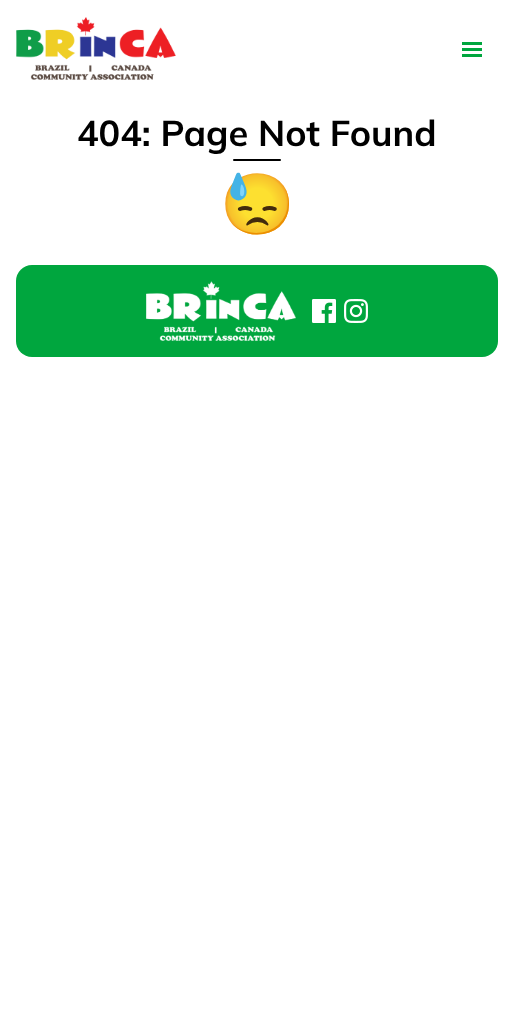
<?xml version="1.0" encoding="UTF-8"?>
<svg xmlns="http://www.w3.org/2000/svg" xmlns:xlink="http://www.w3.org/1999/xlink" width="514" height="1023">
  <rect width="100%" height="100%" fill="#ffffff" />
  <image x="16" y="17" width="160" height="63" xlink:href="image1.png" />
  <rect x="462" y="42" width="20" height="3" fill="#00a63e" />
  <rect x="462" y="48" width="20" height="3" fill="#00a63e" />
  <rect x="462" y="54" width="20" height="3" fill="#00a63e" />
  <rect x="233" y="159" width="48" height="2" rx="1" fill="#000000" />
  <rect x="16" y="265" width="482" height="92" rx="16" fill="#00a63e" />
  <image x="146" y="281" width="150" height="60" xlink:href="image2.png" />
  <image x="312" y="299" width="24" height="24" xlink:href="image3.png" />
  <image x="344" y="299" width="24" height="24" xlink:href="image4.png" />
  <text x="77" y="146" style="font-family: Mulish; font-size: 36px; font-weight: bold; fill: #000000">404: Page Not Found</text>
  <text x="220" y="225" style="font-family: Noto Color Emoji; font-size: 60px; fill: #000000">😓</text>
</svg>
